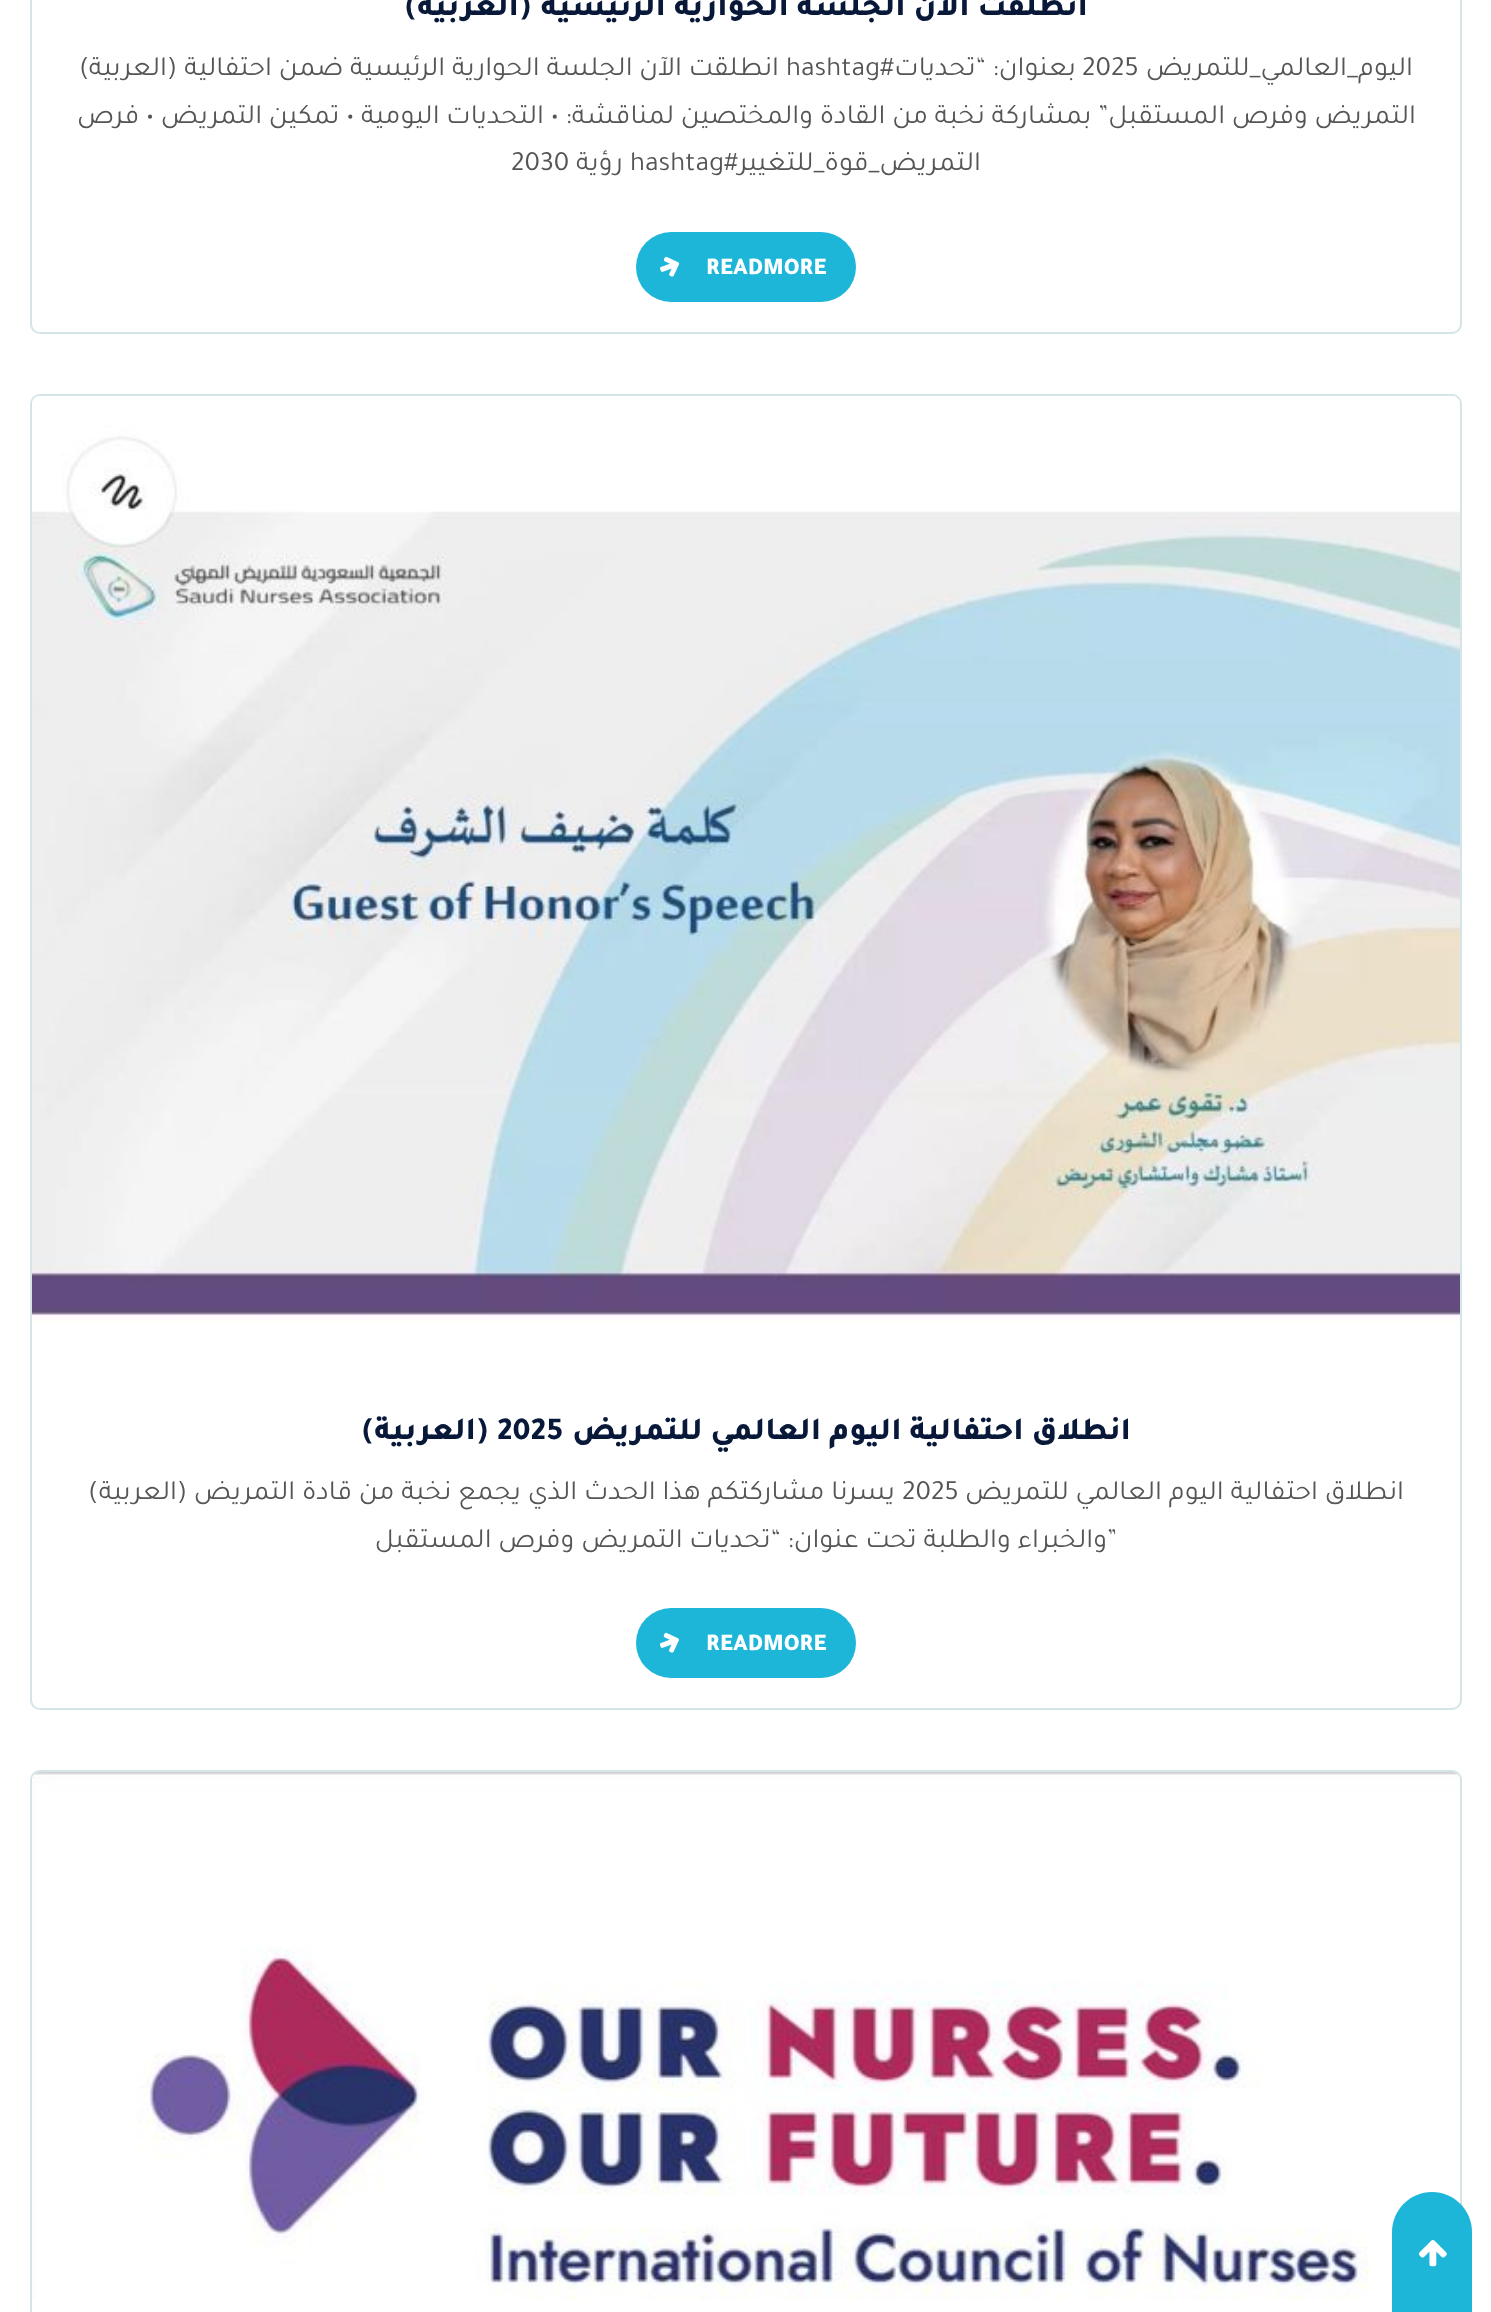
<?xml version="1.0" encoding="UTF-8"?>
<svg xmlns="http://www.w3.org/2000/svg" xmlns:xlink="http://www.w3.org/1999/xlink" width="1491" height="2312">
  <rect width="100%" height="100%" fill="#ffffff" />
  <rect x="31" y="-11" width="1430" height="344" rx="9" fill="none" stroke="#d5e4e7" stroke-width="2" />
  <rect x="636" y="232" width="220" height="70" rx="35" fill="#1db6d8" />
  <image x="660" y="256" width="20" height="21" xlink:href="image1.png" />
  <rect x="31" y="395" width="1430" height="1314" rx="9" fill="none" stroke="#d5e4e7" stroke-width="2" />
  <image x="32" y="396" width="1428" height="927" xlink:href="image2.png" />
  <rect x="636" y="1608" width="220" height="70" rx="35" fill="#1db6d8" />
  <image x="659" y="1632" width="20" height="21" xlink:href="image3.png" />
  <rect x="31" y="1771" width="1430" height="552" rx="9" fill="none" stroke="#d5e4e7" stroke-width="2" />
  <image x="32" y="1772" width="1428" height="528" xlink:href="image4.png" />
  <path d="M 1432 2192 c 22 0 40 18 40 40 v 80 h -80 v -80 c 0 -22 18 -40 40 -40 z" fill="#1db6d8" />
  <image x="1419" y="2240" width="28" height="27" xlink:href="image5.png" />
  <text x="1088" y="15" style="font-family: Tajawal; font-size: 32px; font-weight: 800; direction: rtl; fill: #081839">انطلقت الآن الجلسة الحوارية الرئيسية</text>
  <text x="519" y="15" style="font-family: Tajawal; font-size: 32px; font-weight: 800; fill: #081839">)</text>
  <text x="519" y="15" style="font-family: Tajawal; font-size: 32px; font-weight: 800; direction: rtl; fill: #081839">العربية</text>
  <text x="404" y="15" style="font-family: Tajawal; font-size: 32px; font-weight: 800; fill: #081839">(</text>
  <text x="1413" y="75" style="font-family: Tajawal; font-size: 28px; direction: rtl; fill: #555555">اليوم_العالمي_للتمريض</text>
  <text x="1082" y="75" style="font-family: Tajawal; font-size: 28px; fill: #555555">2025</text>
  <text x="1076" y="75" style="font-family: Tajawal; font-size: 28px; direction: rtl; fill: #555555">بعنوان: “تحديات</text>
  <text x="786" y="75" style="font-family: Tajawal; font-size: 28px; fill: #555555">hashtag#</text>
  <text x="779" y="75" style="font-family: Tajawal; font-size: 28px; direction: rtl; fill: #555555">انطلقت الآن الجلسة الحوارية الرئيسية ضمن احتفالية</text>
  <text x="167" y="75" style="font-family: Tajawal; font-size: 28px; fill: #555555">)</text>
  <text x="167" y="75" style="font-family: Tajawal; font-size: 28px; direction: rtl; fill: #555555">العربية</text>
  <text x="79" y="75" style="font-family: Tajawal; font-size: 28px; fill: #555555">(</text>
  <text x="1416" y="123" style="font-family: Tajawal; font-size: 28px; direction: rtl; fill: #555555">التمريض وفرص المستقبل” بمشاركة نخبة من القادة والمختصين لمناقشة: • التحديات اليومية • تمكين التمريض • فرص</text>
  <text x="630" y="170" style="font-family: Tajawal; font-size: 28px; fill: #555555">hashtag#</text>
  <text x="981" y="170" style="font-family: Tajawal; font-size: 28px; direction: rtl; fill: #555555">التمريض_قوة_للتغيير</text>
  <text x="623" y="170" style="font-family: Tajawal; font-size: 28px; direction: rtl; fill: #555555">رؤية</text>
  <text x="511" y="170" style="font-family: Tajawal; font-size: 28px; fill: #555555">2030</text>
  <text x="706" y="274" style="font-family: Tajawal; font-size: 24px; font-weight: 900; fill: #ffffff">READMORE</text>
  <text x="1131" y="1439" style="font-family: Tajawal; font-size: 32px; font-weight: 800; direction: rtl; fill: #081839">انطلاق احتفالية اليوم العالمي للتمريض</text>
  <text x="476" y="1439" style="font-family: Tajawal; font-size: 32px; font-weight: 800; fill: #081839">) 2025</text>
  <text x="476" y="1439" style="font-family: Tajawal; font-size: 32px; font-weight: 800; direction: rtl; fill: #081839">العربية</text>
  <text x="361" y="1439" style="font-family: Tajawal; font-size: 32px; font-weight: 800; fill: #081839">(</text>
  <text x="1404" y="1499" style="font-family: Tajawal; font-size: 28px; direction: rtl; fill: #555555">انطلاق احتفالية اليوم العالمي للتمريض</text>
  <text x="902" y="1499" style="font-family: Tajawal; font-size: 28px; fill: #555555">2025</text>
  <text x="895" y="1499" style="font-family: Tajawal; font-size: 28px; direction: rtl; fill: #555555">يسرنا مشاركتكم هذا الحدث الذي يجمع نخبة من قادة التمريض</text>
  <text x="177" y="1499" style="font-family: Tajawal; font-size: 28px; fill: #555555">)</text>
  <text x="177" y="1499" style="font-family: Tajawal; font-size: 28px; direction: rtl; fill: #555555">العربية</text>
  <text x="88" y="1499" style="font-family: Tajawal; font-size: 28px; fill: #555555">(</text>
  <text x="1107" y="1547" style="font-family: Tajawal; font-size: 28px; fill: #555555">”</text>
  <text x="1107" y="1547" style="font-family: Tajawal; font-size: 28px; direction: rtl; fill: #555555">والخبراء والطلبة تحت عنوان: “تحديات التمريض وفرص المستقبل</text>
  <text x="706" y="1650" style="font-family: Tajawal; font-size: 24px; font-weight: 900; fill: #ffffff">READMORE</text>
</svg>
